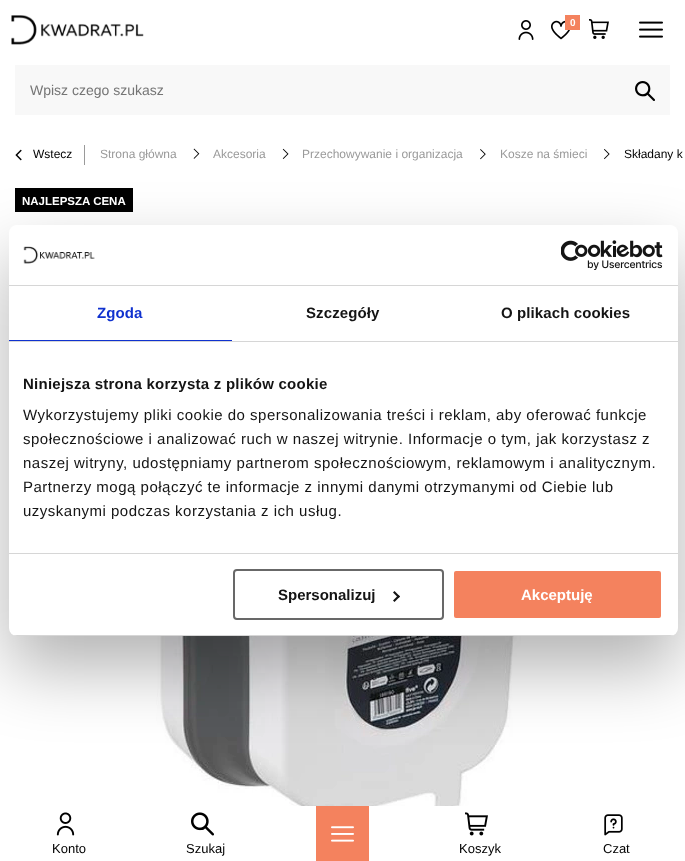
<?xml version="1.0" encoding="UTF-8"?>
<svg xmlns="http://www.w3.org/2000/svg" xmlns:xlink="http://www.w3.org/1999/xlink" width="685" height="861">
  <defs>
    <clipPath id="clip1"><rect x="9" y="225" width="669" height="411" rx="8" /></clipPath>
  </defs>
  <rect width="100%" height="100%" fill="#ffffff" />
  <image x="11" y="15" width="133" height="30" xlink:href="image1.png" />
  <image x="518" y="20" width="16" height="20" xlink:href="image2.png" />
  <image x="551" y="20" width="19" height="20" xlink:href="image3.png" />
  <rect x="565" y="15" width="15" height="15" fill="#f4825e" />
  <image x="589" y="19" width="20" height="20" xlink:href="image4.png" />
  <image x="639" y="21" width="24" height="17" xlink:href="image5.png" />
  <rect x="15" y="65" width="655" height="50" fill="#f8f8f8" />
  <image x="635" y="81" width="20" height="20" xlink:href="image6.png" />
  <image x="15" y="149" width="7" height="12" xlink:href="image7.png" />
  <rect x="84" y="145" width="1" height="20" fill="#9a9a9a" />
  <image x="193" y="148" width="7" height="11" xlink:href="image8.png" />
  <image x="282" y="148" width="7" height="11" xlink:href="image9.png" />
  <image x="480" y="149" width="6" height="11" xlink:href="image10.png" />
  <image x="604" y="149" width="6" height="11" xlink:href="image11.png" />
  <rect x="15" y="188" width="118" height="24" fill="#000000" />
  <image x="156" y="636" width="374" height="170" xlink:href="image12.png" />
  <image x="56" y="812" width="19" height="24" xlink:href="image13.png" />
  <image x="191" y="812" width="23" height="24" xlink:href="image14.png" />
  <rect x="316" y="806" width="53" height="55" fill="#f4825e" />
  <image x="331" y="826" width="23" height="16" xlink:href="image15.png" />
  <image x="465" y="812" width="23" height="24" xlink:href="image16.png" />
  <image x="604" y="814" width="19" height="22" xlink:href="image17.png" />
  <rect x="9" y="257" width="669" height="411" rx="8" fill="#000000" fill-opacity="0.3" filter="blur(34px)" />
  <rect x="9" y="225" width="669" height="411" rx="8" fill="#ffffff" />
  <rect x="9" y="285" width="669" height="1" fill="#d6d6d6" />
  <image x="23" y="246" width="72" height="18" xlink:href="image18.png" />
  <image x="561" y="240" width="102" height="30" xlink:href="image19.png" />
  <rect x="9" y="341" width="669" height="1" fill="#d6d6d6" />
  <rect x="9" y="340" width="223" height="1" fill="#1032cf" />
  <rect x="9" y="553" width="669" height="1" fill="#d6d6d6" />
  <g clip-path="url(#clip1)">
    <rect x="9" y="635" width="669" height="1" fill="#d6d6d6" />
  </g>
  <rect x="234" y="570" width="209" height="49" rx="3" fill="none" stroke="#686868" stroke-width="2" />
  <path d="M 394.5 591 l 5.5 5.5 l -1.5 1.5 l -5.5 -5.5 z" fill="#141414" />
  <path d="M 398.5 595 l 1.5 1.5 l -5.5 5.5 l -1.5 -1.5 z" fill="#141414" />
  <rect x="453" y="570" width="209" height="49" rx="3" fill="#f4825e" stroke="#ffffff" stroke-width="2" />
  <text x="570" y="26" style="font-family: Liberation Sans; font-size: 10px; font-weight: bold; fill: #ffffff">0</text>
  <text x="30" y="95" style="font-family: Liberation Sans; font-size: 14px; fill: #757575">Wpisz czego szukasz</text>
  <text x="33" y="158" style="font-family: Liberation Sans; font-size: 12px; fill: #000000">Wstecz</text>
  <text x="100" y="158" style="font-family: Liberation Sans; font-size: 12px; fill: #9a9a9a">Strona główna</text>
  <text x="213" y="158" style="font-family: Liberation Sans; font-size: 12px; fill: #9a9a9a">Akcesoria</text>
  <text x="302" y="158" style="font-family: Liberation Sans; font-size: 12px; fill: #9a9a9a">Przechowywanie i organizacja</text>
  <text x="500" y="158" style="font-family: Liberation Sans; font-size: 12px; fill: #9a9a9a">Kosze na śmieci</text>
  <text x="624" y="158" style="font-family: Liberation Sans; font-size: 12px; fill: #000000">Składany k</text>
  <text x="22" y="205" style="font-family: Liberation Sans; font-size: 11.5px; font-weight: bold; fill: #ffffff">NAJLEPSZA CENA</text>
  <text x="52" y="853" style="font-family: Liberation Sans; font-size: 13px; fill: #000000">Konto</text>
  <text x="186" y="853" style="font-family: Liberation Sans; font-size: 13px; fill: #000000">Szukaj</text>
  <text x="459" y="853" style="font-family: Liberation Sans; font-size: 13px; fill: #000000">Koszyk</text>
  <text x="603" y="853" style="font-family: Liberation Sans; font-size: 13px; fill: #000000">Czat</text>
  <text x="97" y="318" style="font-family: Liberation Sans; font-size: 15px; font-weight: bold; letter-spacing: 0.1px; fill: #1032cf">Zgoda</text>
  <text x="306" y="318" style="font-family: Liberation Sans; font-size: 15px; font-weight: bold; letter-spacing: 0.1px; fill: #141414">Szczegóły</text>
  <text x="501" y="318" style="font-family: Liberation Sans; font-size: 15px; font-weight: bold; letter-spacing: 0.1px; fill: #141414">O plikach cookies</text>
  <text x="23" y="389" style="font-family: Liberation Sans; font-size: 15px; font-weight: bold; letter-spacing: 0.25px; fill: #141414">Niniejsza strona korzysta z plików cookie</text>
  <text x="23" y="420" style="font-family: Liberation Sans; font-size: 15px; letter-spacing: 0.5px; fill: #141414">Wykorzystujemy pliki cookie do spersonalizowania treści i reklam, aby oferować funkcje</text>
  <text x="23" y="444" style="font-family: Liberation Sans; font-size: 15px; letter-spacing: 0.5px; fill: #141414">społecznościowe i analizować ruch w naszej witrynie. Informacje o tym, jak korzystasz z</text>
  <text x="23" y="468" style="font-family: Liberation Sans; font-size: 15px; letter-spacing: 0.5px; fill: #141414">naszej witryny, udostępniamy partnerom społecznościowym, reklamowym i analitycznym.</text>
  <text x="23" y="492" style="font-family: Liberation Sans; font-size: 15px; letter-spacing: 0.5px; fill: #141414">Partnerzy mogą połączyć te informacje z innymi danymi otrzymanymi od Ciebie lub</text>
  <text x="23" y="516" style="font-family: Liberation Sans; font-size: 15px; letter-spacing: 0.5px; fill: #141414">uzyskanymi podczas korzystania z ich usług.</text>
  <text x="278" y="600" style="font-family: Liberation Sans; font-size: 15px; font-weight: bold; fill: #141414">Spersonalizuj</text>
  <text x="521" y="600" style="font-family: Liberation Sans; font-size: 15px; font-weight: bold; fill: #ffffff">Akceptuję</text>
</svg>
